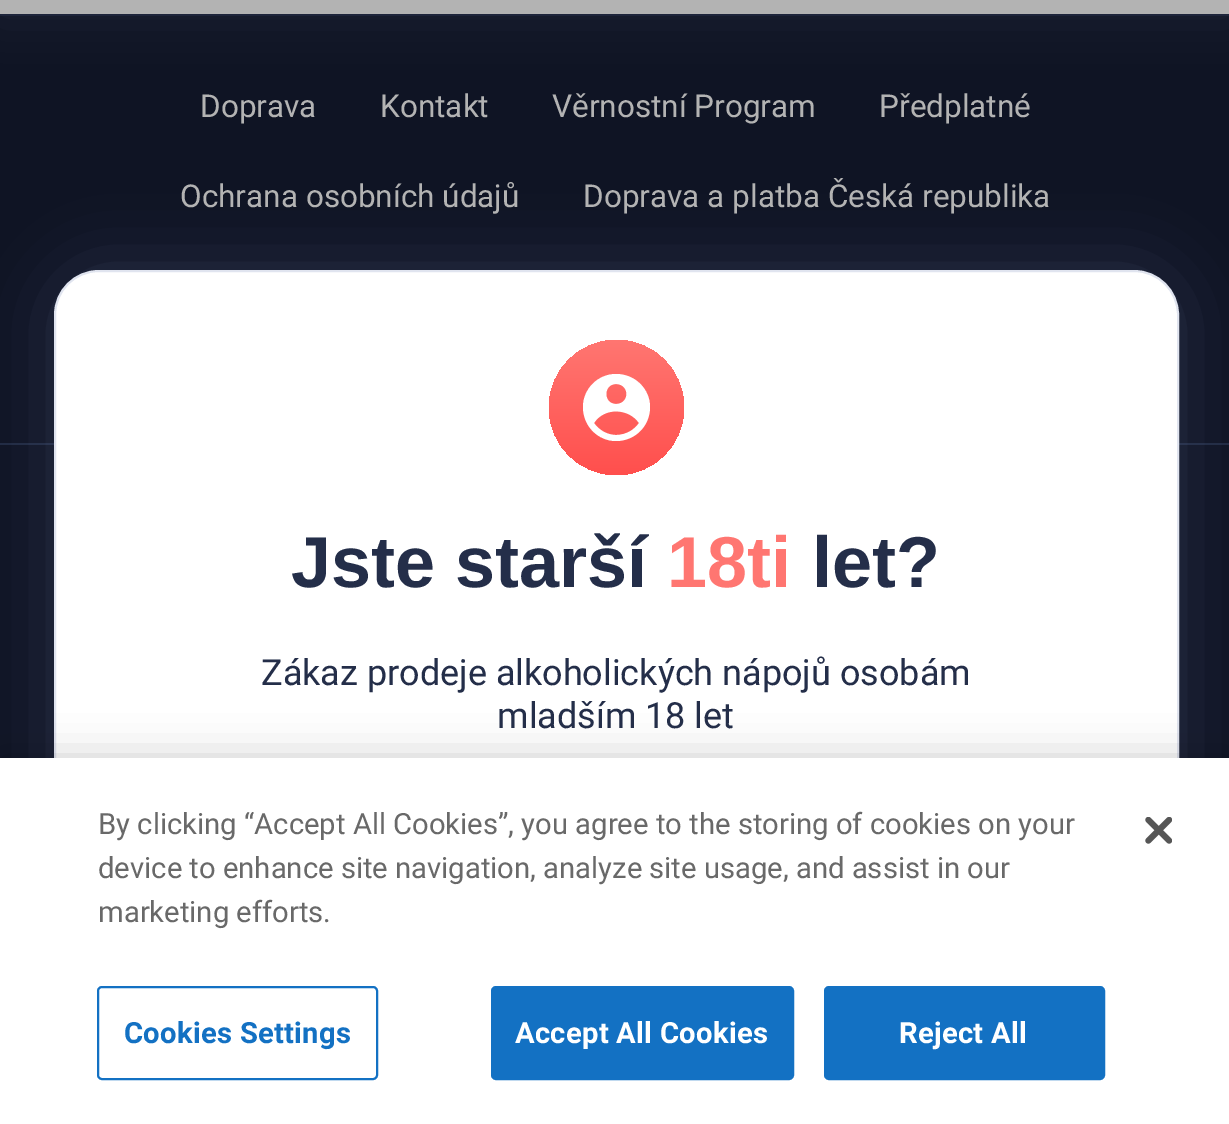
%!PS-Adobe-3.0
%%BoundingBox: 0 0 1229 1124
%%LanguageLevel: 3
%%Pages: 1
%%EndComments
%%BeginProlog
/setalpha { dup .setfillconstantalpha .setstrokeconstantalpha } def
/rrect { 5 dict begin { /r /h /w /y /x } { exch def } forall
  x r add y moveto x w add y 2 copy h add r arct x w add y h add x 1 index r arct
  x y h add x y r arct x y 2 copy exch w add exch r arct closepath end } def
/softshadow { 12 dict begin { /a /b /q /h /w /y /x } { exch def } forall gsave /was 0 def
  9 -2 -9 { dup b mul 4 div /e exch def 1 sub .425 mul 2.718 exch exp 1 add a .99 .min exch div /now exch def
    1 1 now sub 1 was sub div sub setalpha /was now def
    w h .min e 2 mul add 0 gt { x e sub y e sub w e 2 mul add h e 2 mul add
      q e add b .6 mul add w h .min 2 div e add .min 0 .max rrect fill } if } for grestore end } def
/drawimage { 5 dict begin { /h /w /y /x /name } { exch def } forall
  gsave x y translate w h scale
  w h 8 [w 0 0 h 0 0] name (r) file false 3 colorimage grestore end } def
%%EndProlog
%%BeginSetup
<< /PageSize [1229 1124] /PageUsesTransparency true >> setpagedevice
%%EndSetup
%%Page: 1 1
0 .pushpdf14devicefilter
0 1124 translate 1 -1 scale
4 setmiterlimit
0.059 0.078 0.141 setrgbcolor
0 0 1229 1124 rectfill
0.098 0.125 0.2 setrgbcolor
0 14 1229 2 rectfill
0.318 0.353 0.467 setrgbcolor
0 -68 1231 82 0 22.5 0.2 softshadow
0.702 setgray
0 0 1229 14 rectfill
0.125 0.165 0.263 setrgbcolor
0 443 1229 2 rectfill
0.455 0.506 0.667 setrgbcolor
54 270 1125 716 45 34 0.25 softshadow
1 setgray
55 271 1123 714 44 rrect gsave fill grestore
0.878 0.894 0.937 setrgbcolor
2 setlinewidth
stroke
gsave newpath 616.5 407.5 67.5 0 360 arc closepath clip newpath
<< /ShadingType 2 /ColorSpace /DeviceRGB /Coords [617 340 617 475] /Extend [true true] /Function << /FunctionType 2 /Domain [0 1] /C0 [1 0.463 0.443] /C1 [1 0.31 0.302] /N 1 >> >> shfill grestore
1 setgray
newpath 616 374 moveto 598 374 583 389 583 407 curveto 583 426 598 441 616 441 curveto 635 441 650 426 650 407 curveto 650 389 635 374 616 374 curveto closepath 616 384 moveto 630 384 630 404 616 404 curveto 603 404 603 384 616 384 curveto closepath 616 435 moveto 606 435 598 429 594 423 curveto 604 407 629 408 639 423 curveto 635 429 627 435 616 435 curveto closepath fill
0 setgray
0 758 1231 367 0 20 0.2 softshadow
1 setgray
0 758 1229 366 rectfill
0.075 0.443 0.765 setrgbcolor
98 987 279 92 4 rrect stroke
492 987 301 92 4 rrect gsave fill grestore
stroke
825 987 279 92 4 rrect gsave fill grestore
stroke
(images/1.raw) 1145 817 27 27 drawimage
/Roboto-Regular [31.5 0 0 -31.5 0 0] selectfont
0.702 setgray
200 117 moveto (Doprava) show
380 117 moveto (Kontakt) show
552 117 moveto (Věrnostní Program) show
879 117 moveto (Předplatné) show
180 207 moveto (Ochrana osobních údajů) show
583 207 moveto (Doprava a platba Česká republika) show
/LiberationSans-Bold [72 0 0 -72 0 0] selectfont
0.141 0.18 0.286 setrgbcolor
291 587 moveto (Jste starší) show
1 0.463 0.443 setrgbcolor
667 587 moveto (18ti) show
0.141 0.18 0.286 setrgbcolor
812 587 moveto (let?) show
/Roboto-Regular [36 0 0 -36 0 0] selectfont
261 685 moveto (Zákaz prodeje alkoholických nápojů osobám) show
497 728 moveto (mladším 18 let) show
/Roboto-Regular [29.25 0 0 -29.25 0 0] selectfont
0.412 setgray
98 834 moveto (By clicking “Accept All Cookies”, you agree to the storing of cookies on your) show
98 878 moveto (device to enhance site navigation, analyze site usage, and assist in our) show
98 922 moveto (marketing efforts.) show
/Roboto-Bold [29.25 0 0 -29.25 0 0] selectfont
0.075 0.443 0.765 setrgbcolor
124 1043 moveto 0.25 0 (Cookies Settings) ashow
1 setgray
515 1043 moveto 0.25 0 (Accept All Cookies) ashow
899 1043 moveto 0.25 0 (Reject All) ashow
.poppdf14devicefilter showpage
%%EOF
